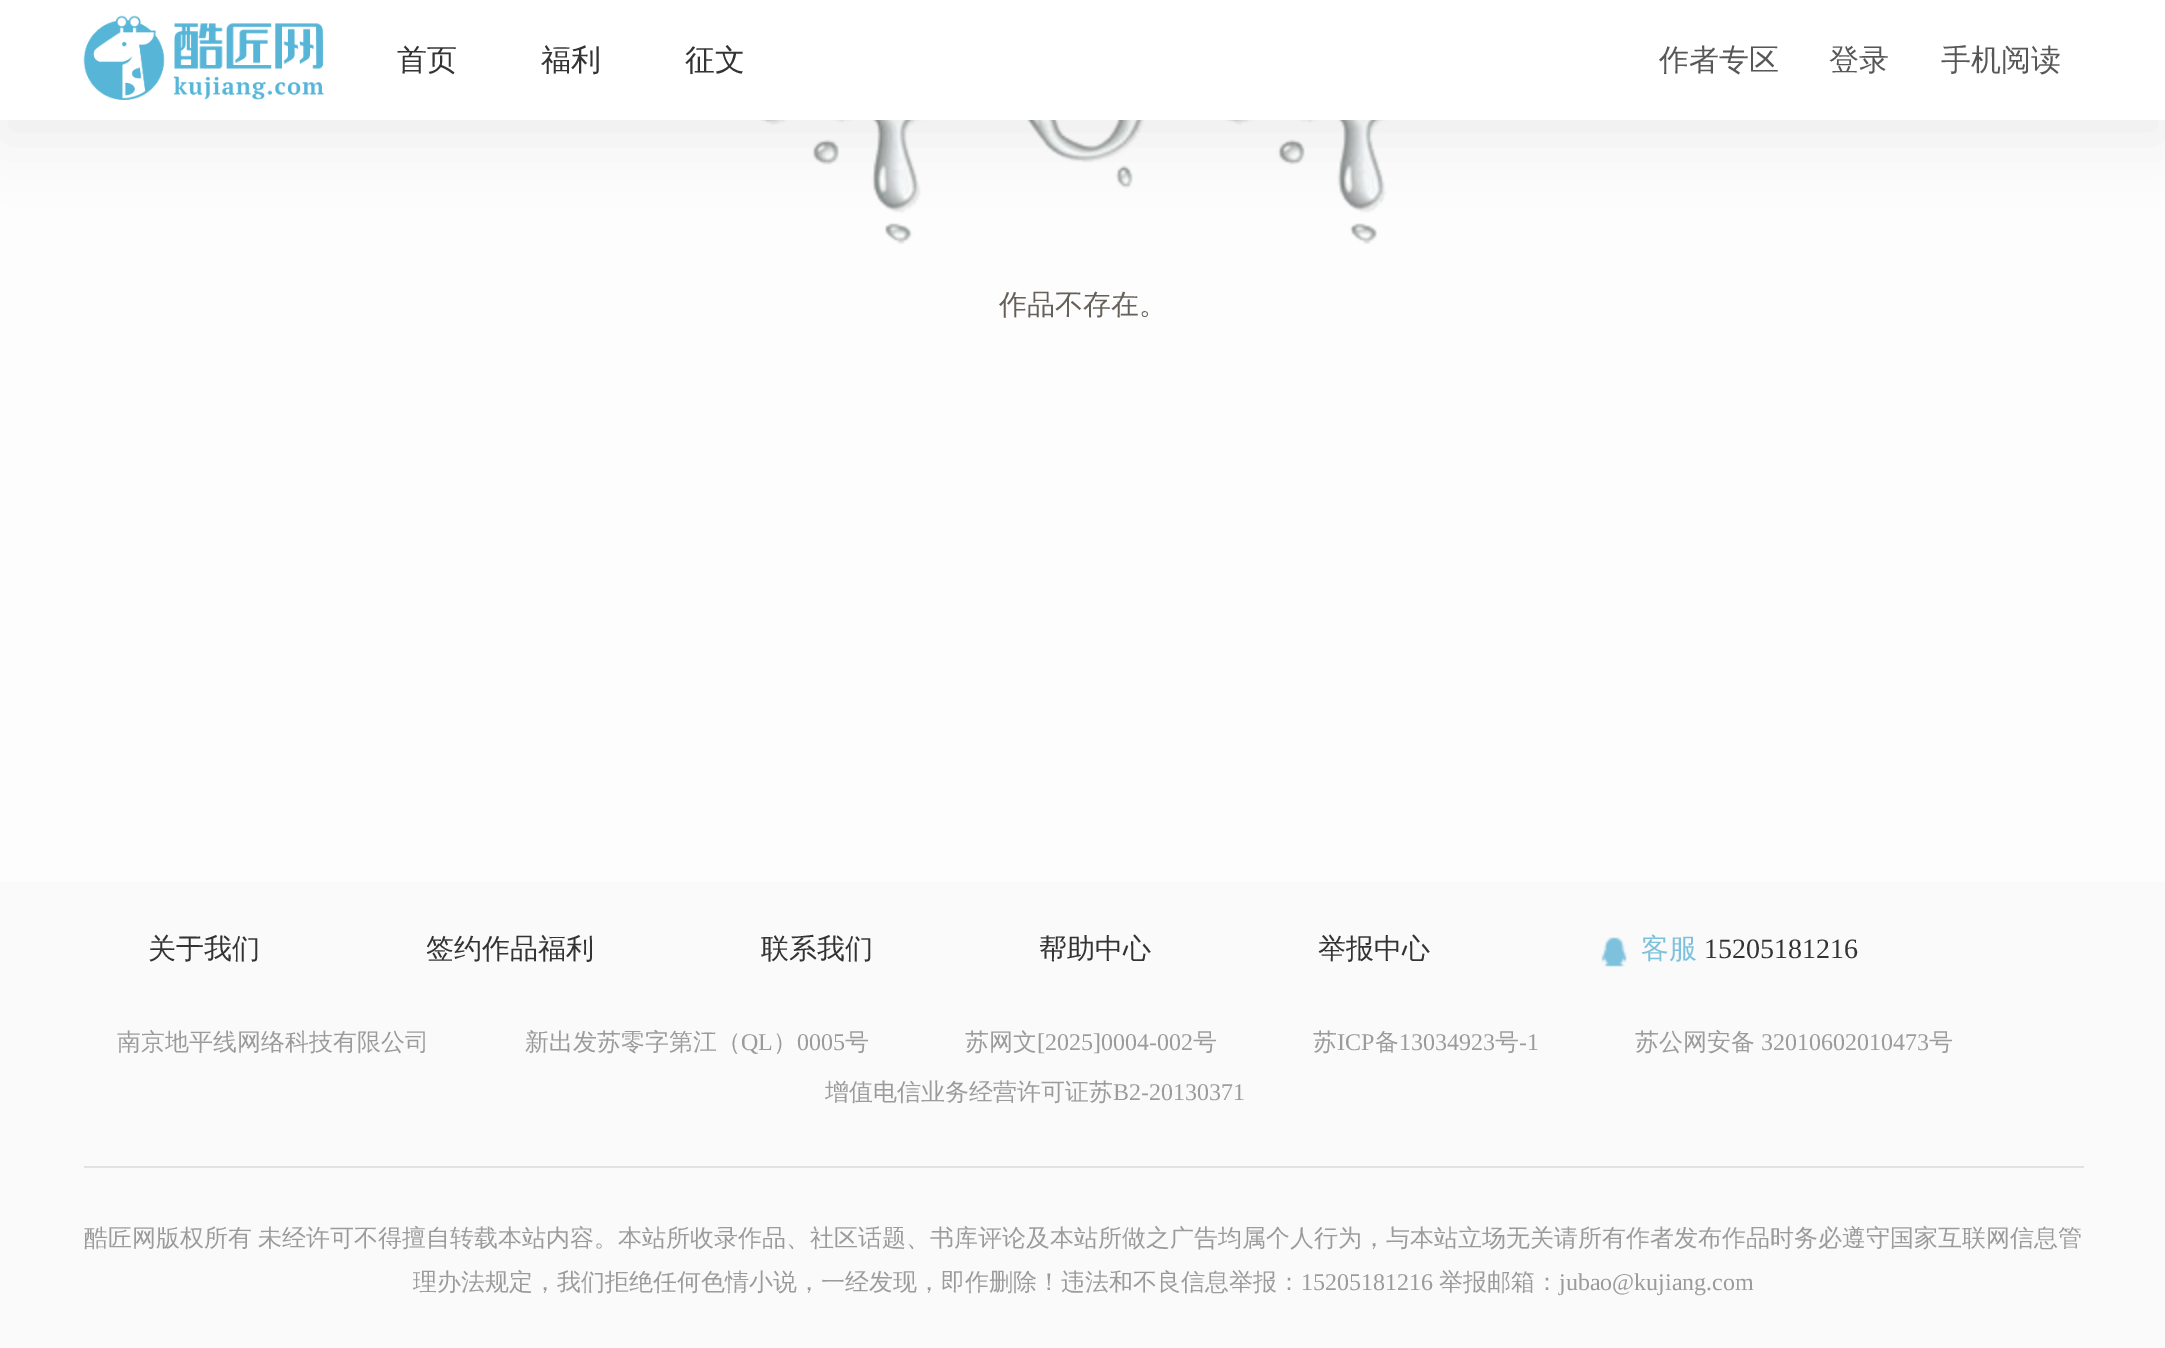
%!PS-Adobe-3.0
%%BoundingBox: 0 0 2165 1348
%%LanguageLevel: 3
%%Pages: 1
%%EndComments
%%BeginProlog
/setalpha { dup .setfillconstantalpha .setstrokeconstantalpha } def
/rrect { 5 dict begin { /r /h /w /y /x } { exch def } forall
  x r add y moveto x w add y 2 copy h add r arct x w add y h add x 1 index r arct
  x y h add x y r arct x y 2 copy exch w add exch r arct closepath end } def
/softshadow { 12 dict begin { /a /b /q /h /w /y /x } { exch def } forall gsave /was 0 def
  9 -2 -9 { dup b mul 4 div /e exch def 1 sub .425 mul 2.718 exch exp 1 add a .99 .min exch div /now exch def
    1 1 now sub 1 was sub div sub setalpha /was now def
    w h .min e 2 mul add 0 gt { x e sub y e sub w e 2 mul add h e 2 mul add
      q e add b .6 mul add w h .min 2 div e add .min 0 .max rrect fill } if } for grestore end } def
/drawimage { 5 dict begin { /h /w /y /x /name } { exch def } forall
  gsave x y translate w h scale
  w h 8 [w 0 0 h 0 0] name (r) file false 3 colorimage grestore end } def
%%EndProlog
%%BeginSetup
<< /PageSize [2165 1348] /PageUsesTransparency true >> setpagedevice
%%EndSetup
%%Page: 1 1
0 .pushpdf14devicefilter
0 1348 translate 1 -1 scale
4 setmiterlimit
0.992 setgray
0 0 2165 1348 rectfill
(images/2.raw) 758 120 655 124 drawimage
0.4 setgray
0 20 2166 120 0 30 0.1 softshadow
1 setgray
0 0 2165 120 rectfill
(images/1.raw) 83 15 241 85 drawimage
0.98 setgray
0 882 2165 466 rectfill
(images/3.raw) 1601 937 26 30 drawimage
0.886 setgray
84 1166 2000 2 rectfill
/WenQuanYiZenHei-Medium [30 0 0 -30 0 0] selectfont
0.2 setgray
397 70 moveto (首页) show
541 70 moveto (福利) show
685 70 moveto (征文) show
0.341 setgray
1659 70 moveto (作者专区) show
1829 70 moveto (登录) show
1941 70 moveto (手机阅读) show
/WenQuanYiZenHei-Medium [28 0 0 -28 0 0] selectfont
0.4 0.376 0.357 setrgbcolor
999 314 moveto (作品不存在。) show
0.2 setgray
148 958 moveto (关于我们) show
426 958 moveto (签约作品福利) show
761 958 moveto (联系我们) show
1039 958 moveto (帮助中心) show
1318 958 moveto (举报中心) show
0.49 0.757 0.863 setrgbcolor
1641 958 moveto (客服) show
/LiberationSerif-Regular [28 0 0 -28 0 0] selectfont
0.2 setgray
1704 958 moveto (15205181216) show
/WenQuanYiZenHei-Medium [24 0 0 -24 0 0] selectfont
0.608 setgray
117 1050 moveto (南京地平线网络科技有限公司) show
525 1050 moveto (新出发苏零字第江（) show
/LiberationSerif-Regular [24 0 0 -24 0 0] selectfont
741 1050 moveto (QL) show
/WenQuanYiZenHei-Medium [24 0 0 -24 0 0] selectfont
773 1050 moveto (）) show
/LiberationSerif-Regular [24 0 0 -24 0 0] selectfont
797 1050 moveto (0005) show
/WenQuanYiZenHei-Medium [24 0 0 -24 0 0] selectfont
845 1050 moveto (号) show
965 1050 moveto (苏网文) show
/LiberationSerif-Regular [24 0 0 -24 0 0] selectfont
1037 1050 moveto ([2025]0004-002) show
/WenQuanYiZenHei-Medium [24 0 0 -24 0 0] selectfont
1193 1050 moveto (号) show
1313 1050 moveto (苏) show
/LiberationSerif-Regular [24 0 0 -24 0 0] selectfont
1337 1050 moveto (ICP) show
/WenQuanYiZenHei-Medium [24 0 0 -24 0 0] selectfont
1375 1050 moveto (备) show
/LiberationSerif-Regular [24 0 0 -24 0 0] selectfont
1399 1050 moveto (13034923) show
/WenQuanYiZenHei-Medium [24 0 0 -24 0 0] selectfont
1495 1050 moveto (号) show
/LiberationSerif-Regular [24 0 0 -24 0 0] selectfont
1519 1050 moveto (-1) show
/WenQuanYiZenHei-Medium [24 0 0 -24 0 0] selectfont
1635 1050 moveto (苏公网安备) show
/LiberationSerif-Regular [24 0 0 -24 0 0] selectfont
1761 1050 moveto (32010602010473) show
/WenQuanYiZenHei-Medium [24 0 0 -24 0 0] selectfont
1929 1050 moveto (号) show
825 1100 moveto (增值电信业务经营许可证苏) show
/LiberationSerif-Regular [24 0 0 -24 0 0] selectfont
1113 1100 moveto (B2-20130371) show
/WenQuanYiZenHei-Medium [24 0 0 -24 0 0] selectfont
84 1246 moveto -1 0 32 (酷匠网版权所有 未经许可不得擅自转载本站内容。本站所收录作品、社区话题、书库评论及本站所做之广告均属个人行为，与本站立场无关请所有作者发布作品时务必遵守国家互联网信息管) widthshow
413 1290 moveto (理办法规定，我们拒绝任何色情小说，一经发现，即作删除！违法和不良信息举报：) show
/LiberationSerif-Regular [24 0 0 -24 0 0] selectfont
1301 1290 moveto (15205181216) show
/WenQuanYiZenHei-Medium [24 0 0 -24 0 0] selectfont
1439 1290 moveto (举报邮箱：) show
/LiberationSerif-Regular [24 0 0 -24 0 0] selectfont
1559 1290 moveto (jubao@kujiang.com) show
.poppdf14devicefilter showpage
%%EOF
